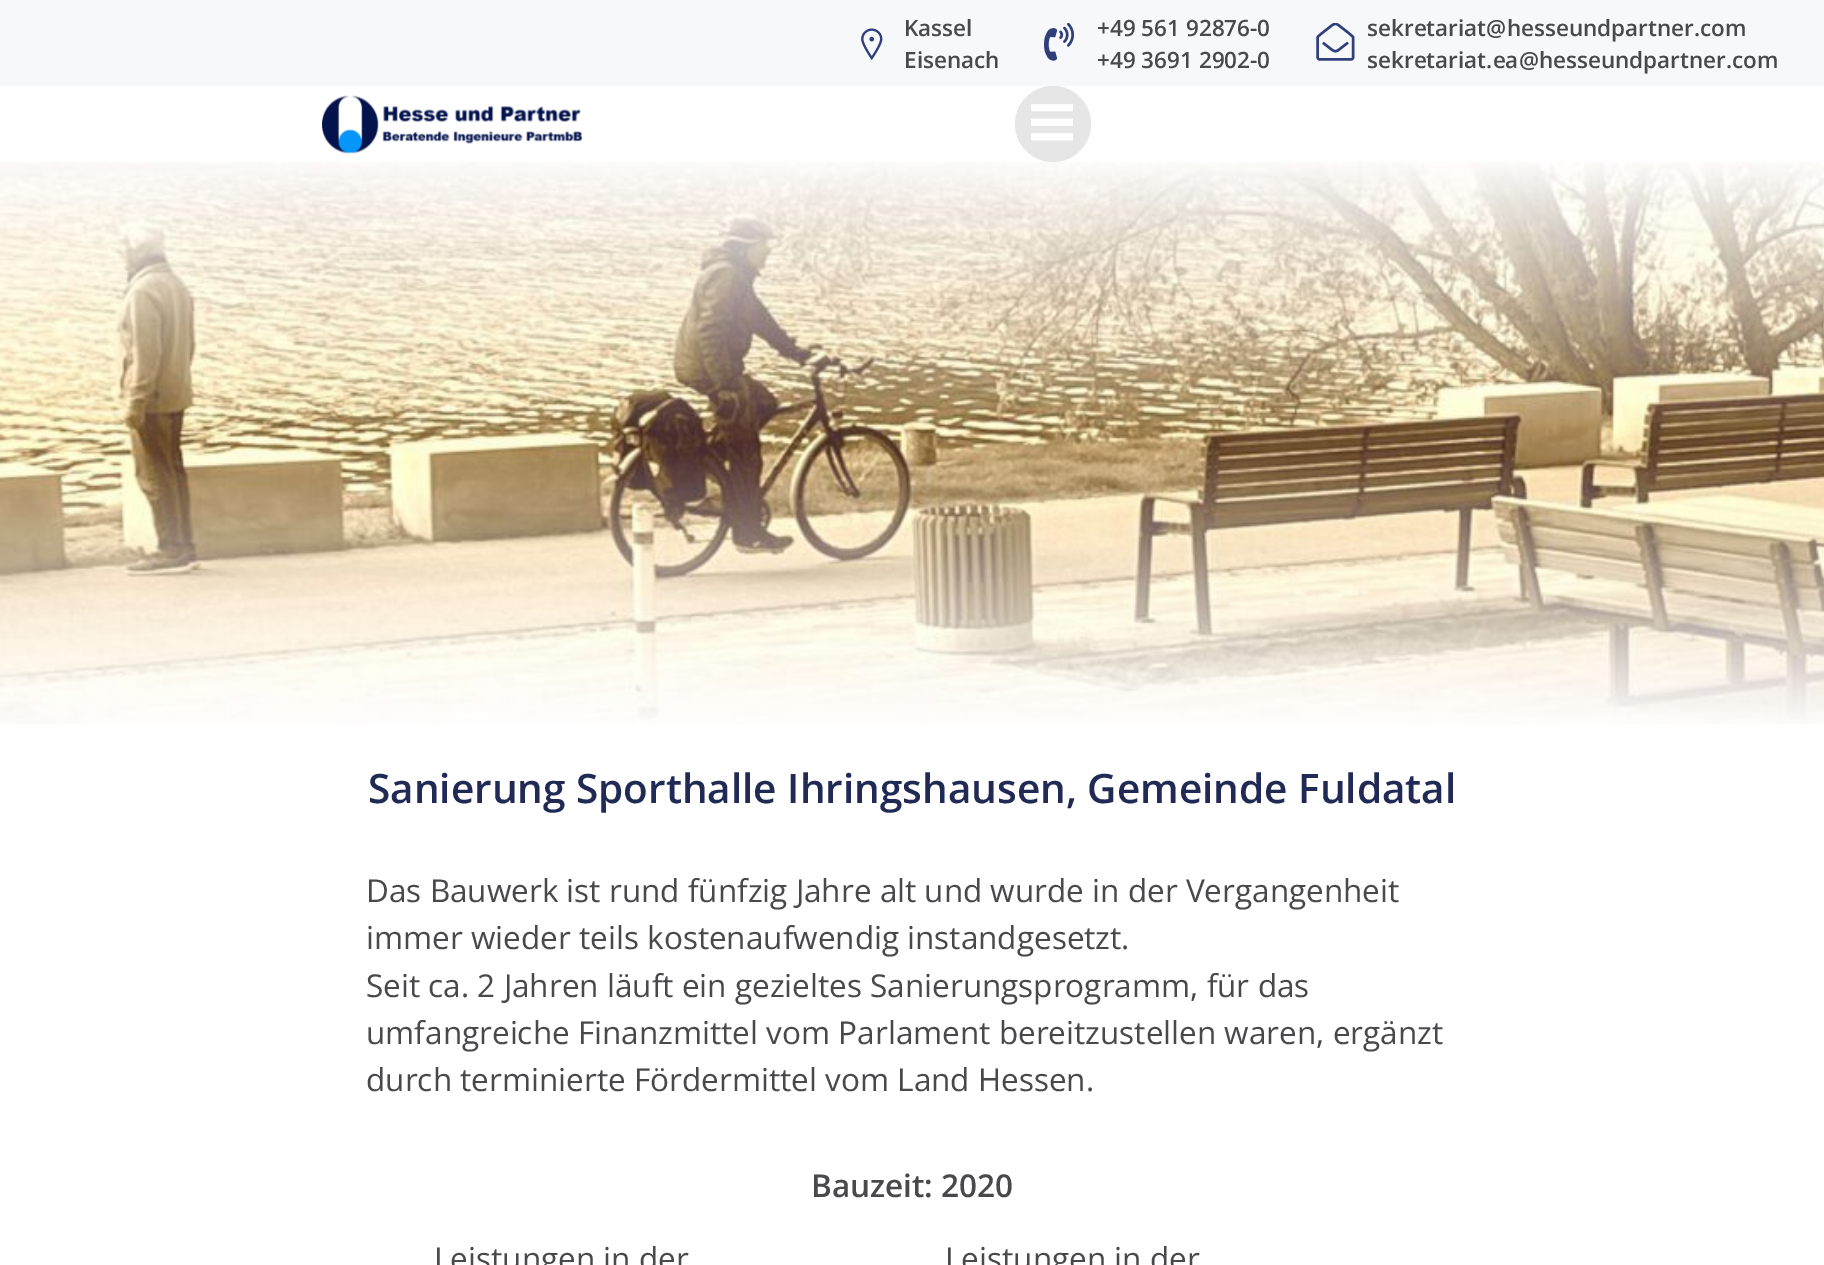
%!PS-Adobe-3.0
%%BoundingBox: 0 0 1824 1265
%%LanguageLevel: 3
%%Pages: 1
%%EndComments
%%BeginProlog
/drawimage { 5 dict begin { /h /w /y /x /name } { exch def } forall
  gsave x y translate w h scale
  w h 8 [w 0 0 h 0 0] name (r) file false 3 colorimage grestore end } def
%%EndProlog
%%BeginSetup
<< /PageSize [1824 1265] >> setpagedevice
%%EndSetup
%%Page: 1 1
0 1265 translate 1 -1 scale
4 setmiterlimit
1 setgray
0 0 1824 1265 rectfill
0.965 0.973 0.98 setrgbcolor
0 0 1824 86 rectfill
(images/1.raw) 861 28 22 33 drawimage
(images/2.raw) 1044 23 31 38 drawimage
(images/3.raw) 1316 23 39 38 drawimage
(images/4.raw) 322 95 261 59 drawimage
0.902 setgray
newpath 1053 124 38 0 360 arc closepath fill
(images/5.raw) 1031 104 42 37 drawimage
(images/6.raw) 0 162 1824 563 drawimage
/OpenSans-SemiBold [22.5 0 0 -22.5 0 0] selectfont
0.286 0.286 0.298 setrgbcolor
904 36 moveto (Kassel) show
904 68 moveto (Eisenach) show
1097 36 moveto (+49 561 92876-0) show
1097 68 moveto (+49 3691 2902-0) show
1367 36 moveto (sekretariat@hesseundpartner.com) show
1367 68 moveto (sekretariat.ea@hesseundpartner.com) show
/OpenSans-SemiBold [40.5 0 0 -40.5 0 0] selectfont
0.125 0.165 0.329 setrgbcolor
368 803 moveto (Sanierung Sporthalle Ihringshausen, Gemeinde Fuldatal) show
/OpenSans-Regular [31.5 0 0 -31.5 0 0] selectfont
0.286 0.286 0.298 setrgbcolor
366 902 moveto (Das Bauwerk ist rund fünfzig Jahre alt und wurde in der Vergangenheit) show
366 949 moveto (immer wieder teils kostenaufwendig instandgesetzt.) show
366 997 moveto (Seit ca. 2 Jahren läuft ein gezieltes Sanierungsprogramm, für das) show
366 1044 moveto (umfangreiche Finanzmittel vom Parlament bereitzustellen waren, ergänzt) show
366 1091 moveto (durch terminierte Fördermittel vom Land Hessen.) show
/OpenSans-SemiBold [31.5 0 0 -31.5 0 0] selectfont
811 1197 moveto (Bauzeit: 2020) show
/OpenSans-Regular [31.5 0 0 -31.5 0 0] selectfont
434 1270 moveto (Leistungen in der) show
945 1270 moveto (Leistungen in der) show
showpage
%%EOF
